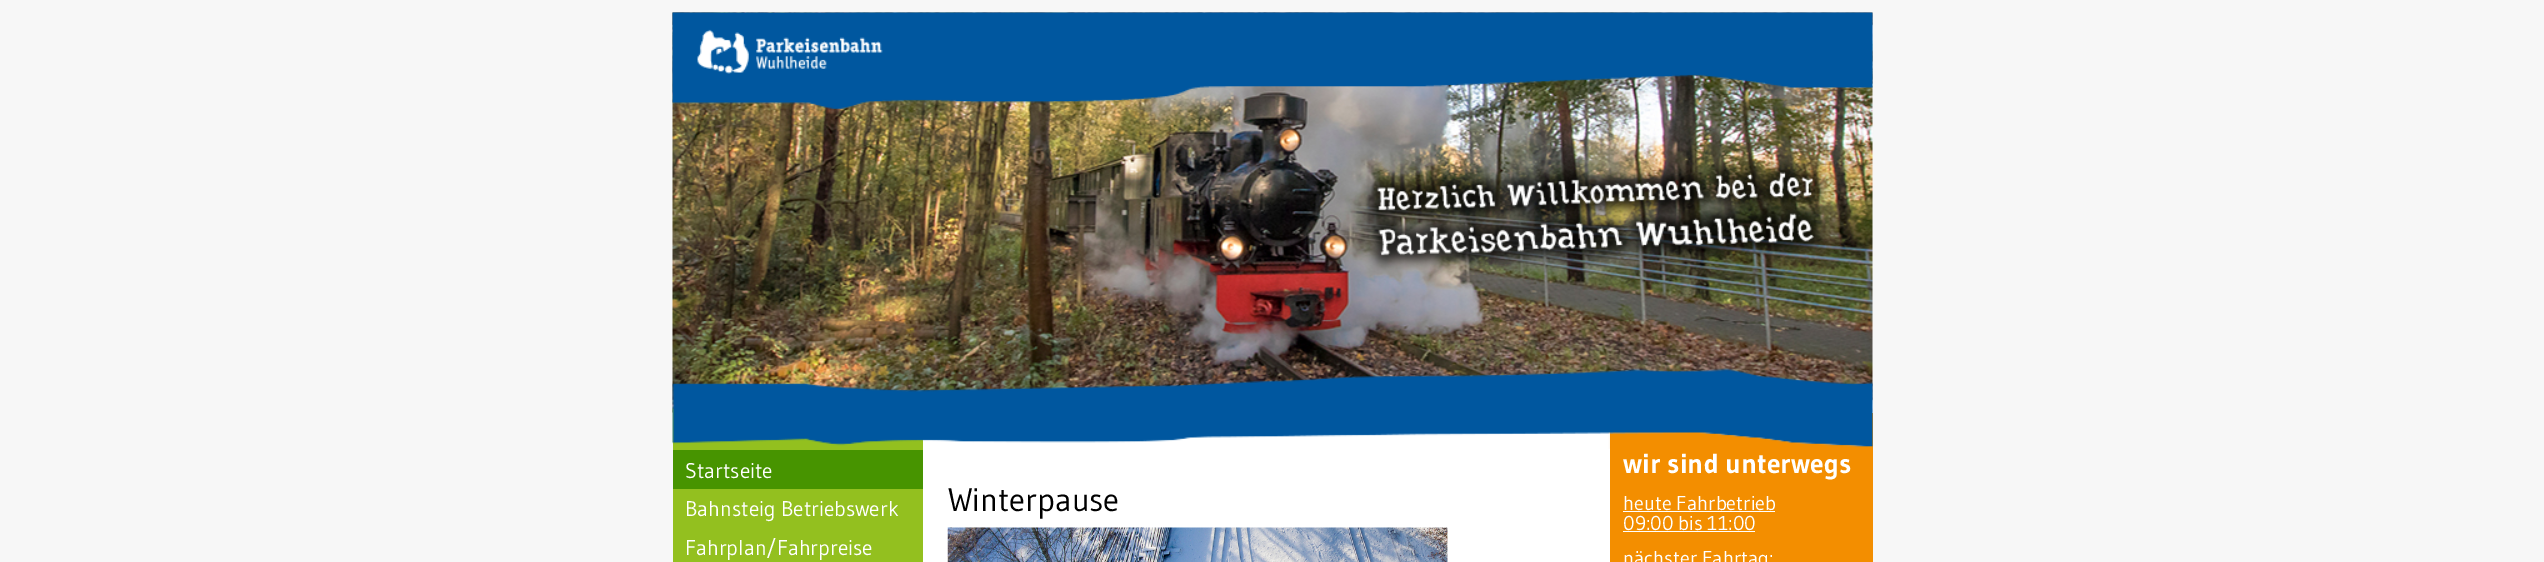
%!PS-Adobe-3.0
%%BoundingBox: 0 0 2544 562
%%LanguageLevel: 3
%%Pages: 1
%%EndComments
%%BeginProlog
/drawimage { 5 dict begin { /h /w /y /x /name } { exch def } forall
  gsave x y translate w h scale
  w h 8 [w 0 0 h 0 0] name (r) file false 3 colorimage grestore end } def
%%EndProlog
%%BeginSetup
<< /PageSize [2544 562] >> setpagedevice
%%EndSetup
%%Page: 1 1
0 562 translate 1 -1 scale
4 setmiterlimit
0.969 setgray
0 0 2544 562 rectfill
(images/1.raw) 672 12 1201 401 drawimage
(images/2.raw) 672 12 1201 97 drawimage
(images/3.raw) 697 29 186 45 drawimage
0.576 0.753 0.122 setrgbcolor
673 438 250 124 rectfill
1 setgray
923 432 687 130 rectfill
0.953 0.557 0 setrgbcolor
1610 413 263 149 rectfill
(images/4.raw) 672 368 1201 81 drawimage
0.278 0.58 0 setrgbcolor
673 450 250 39 rectfill
(images/5.raw) 947 527 501 35 drawimage
1 setgray
1623 511 152 1 rectfill
1623 531 132 1 rectfill
/Gudea-Regular [21.25 0 0 -21.25 0 0] selectfont
685 478 moveto (Startseite) show
685 516 moveto (Bahnsteig Betriebswerk) show
685 555 moveto (Fahrplan/Fahrpreise) show
/Gudea-Regular [32.5 0 0 -32.5 0 0] selectfont
0 setgray
948 511 moveto (Winterpause) show
/Gudea-Bold [27.5 0 0 -27.5 0 0] selectfont
1 setgray
1623 473 moveto (wir sind unterwegs) show
/Gudea-Regular [20 0 0 -20 0 0] selectfont
1623 510 moveto (heute Fahrbetrieb) show
1623 530 moveto (09:00 bis 11:00) show
1623 565 moveto (nächster Fahrtag:) show
showpage
%%EOF
